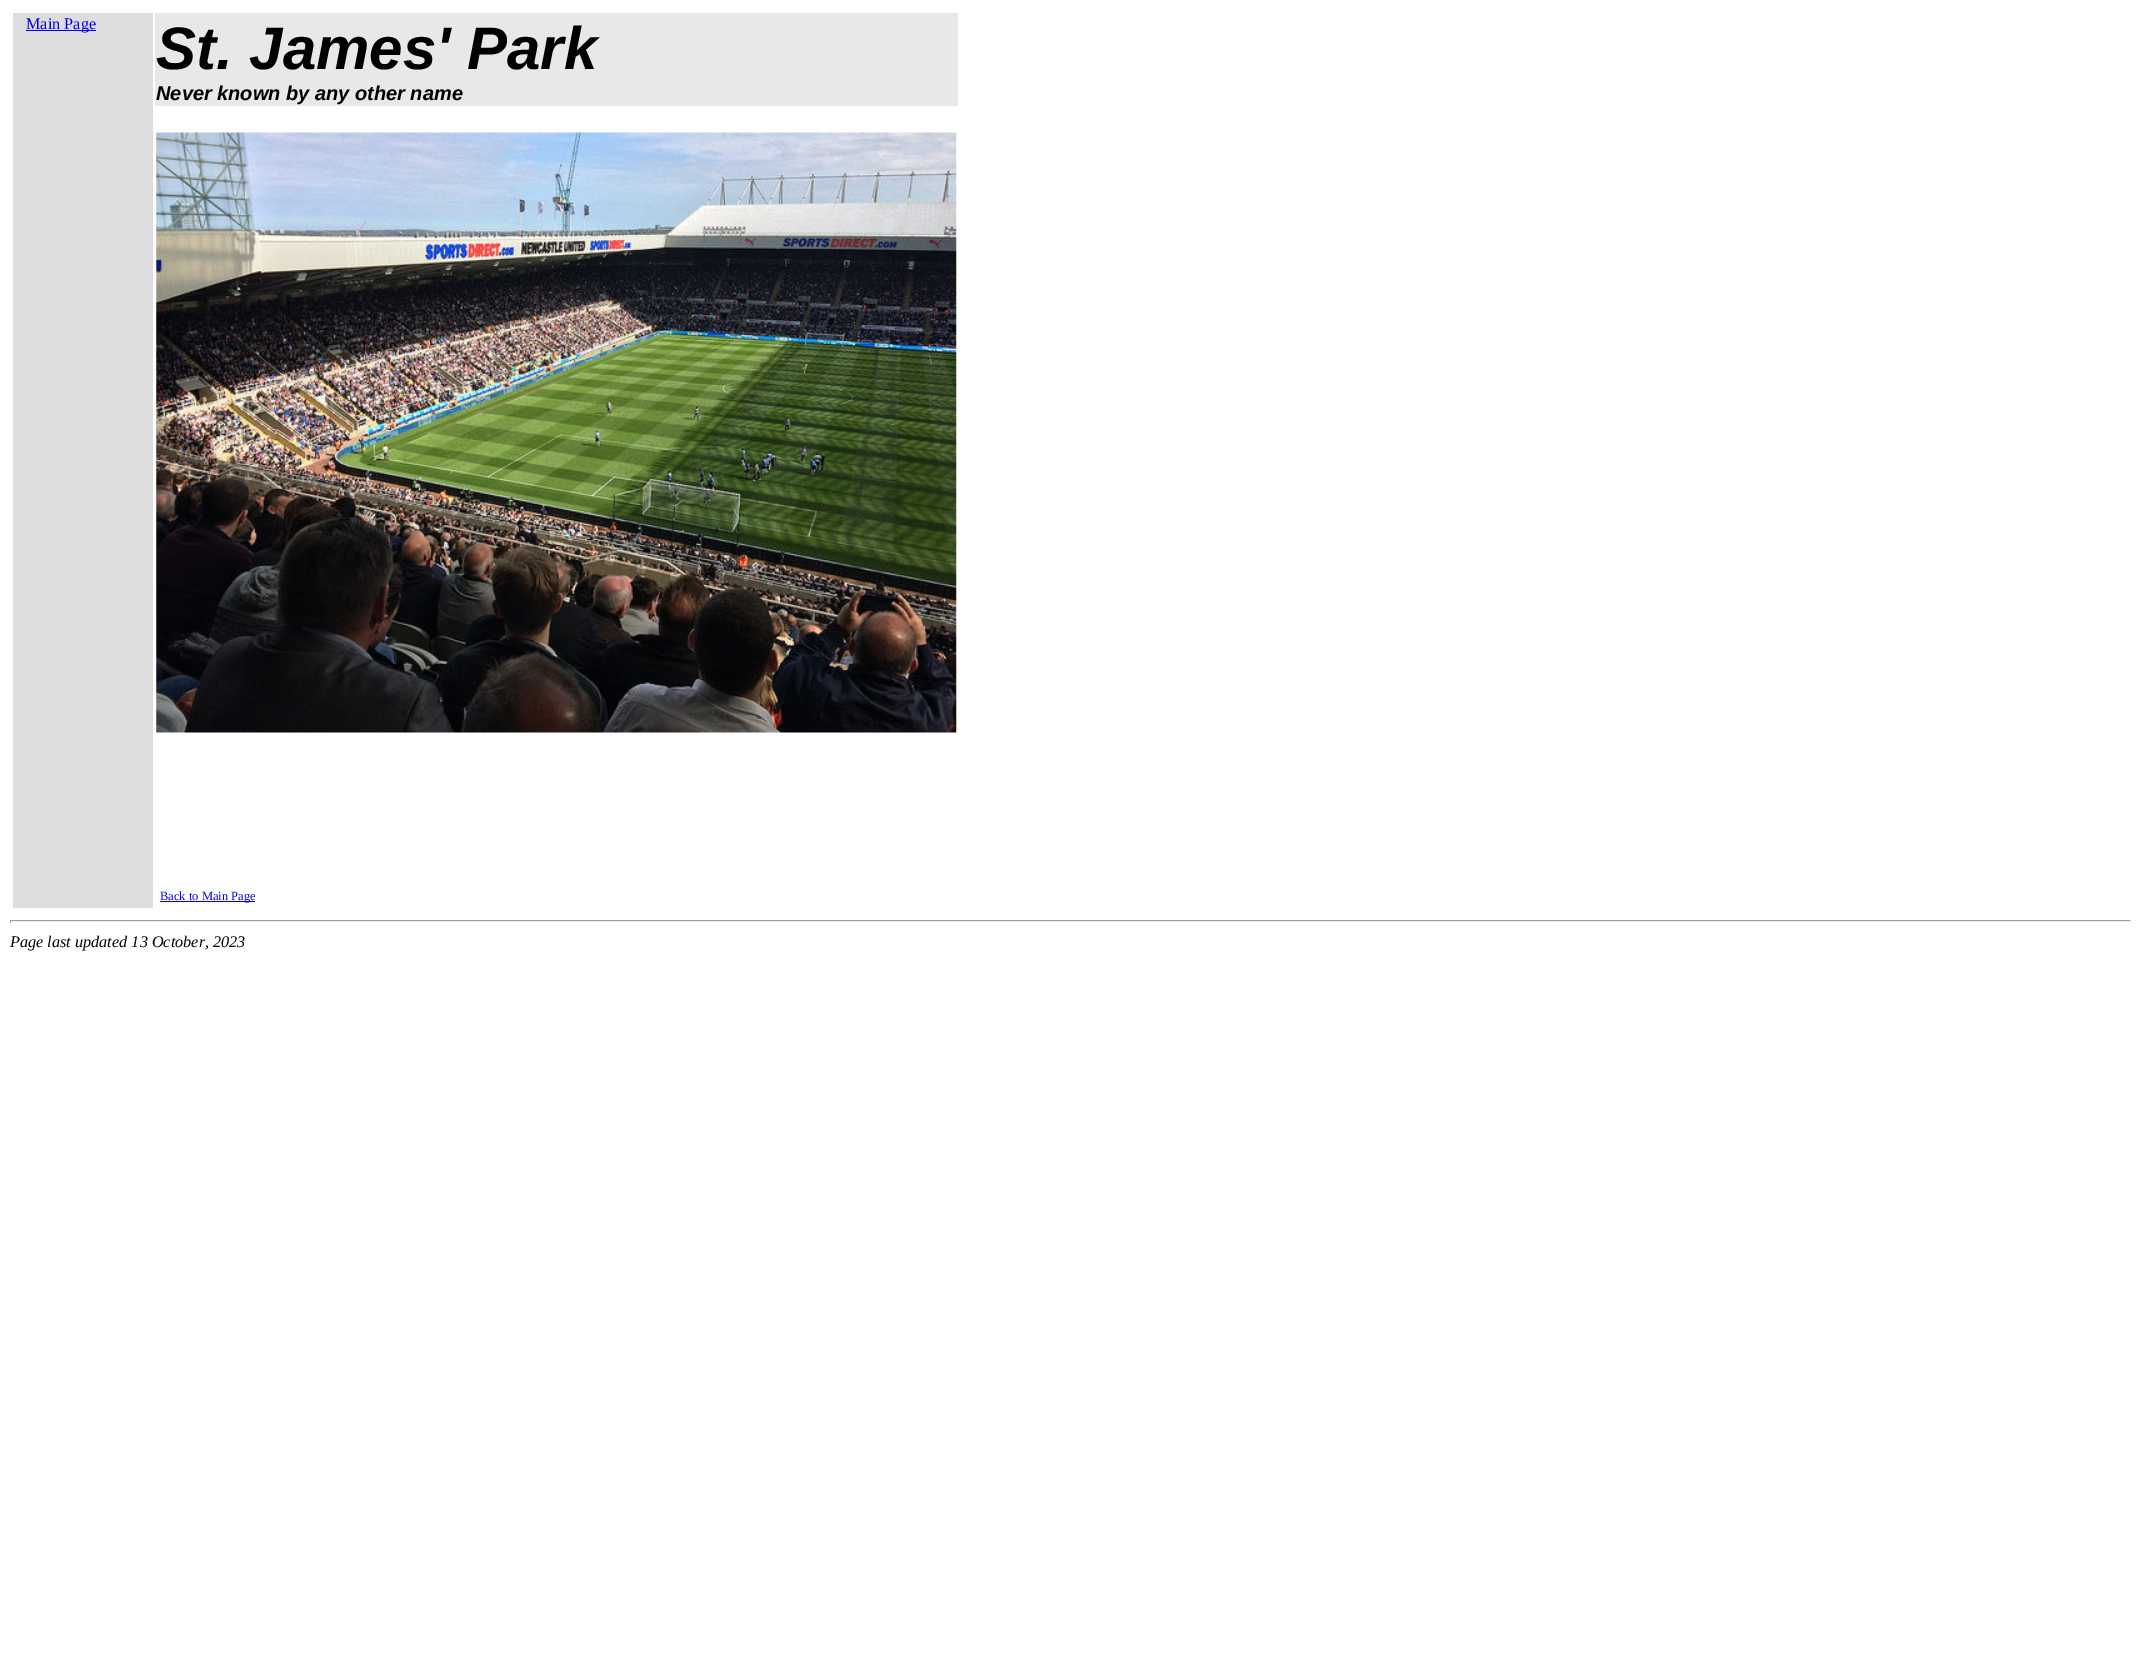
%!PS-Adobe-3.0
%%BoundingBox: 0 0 2141 1678
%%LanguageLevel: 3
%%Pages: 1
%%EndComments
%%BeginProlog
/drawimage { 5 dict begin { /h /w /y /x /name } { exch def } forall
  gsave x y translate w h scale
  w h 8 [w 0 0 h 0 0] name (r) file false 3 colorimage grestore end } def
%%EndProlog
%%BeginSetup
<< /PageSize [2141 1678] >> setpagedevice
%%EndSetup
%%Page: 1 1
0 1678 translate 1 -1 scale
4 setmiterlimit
1 setgray
0 0 2141 1678 rectfill
0.867 setgray
13 13 140 895 rectfill
0 0 0.933 setrgbcolor
26 30 70 1 rectfill
0.91 setgray
155 13 803 93 rectfill
(images/1.raw) 156 132 801 601 drawimage
0 0 0.933 setrgbcolor
160 901 95 1 rectfill
0.624 setgray
10 920 2121 1 rectfill
0.933 setgray
2130 920 1 3 rectfill
10 921 2121 1 rectfill
0.624 setgray
10 920 1 3 rectfill
/LiberationSerif-Regular [16.25 0 0 -16.25 0 0] selectfont
0 0 0.933 setrgbcolor
26 29 moveto (Main Page) show
/LiberationSans-BoldItalic [60 0 0 -60 0 0] selectfont
0 setgray
156 69 moveto (St. James' Park) show
/LiberationSans-BoldItalic [20 0 0 -20 0 0] selectfont
156 100 moveto (Never known by any other name) show
/LiberationSerif-Regular [12.5 0 0 -12.5 0 0] selectfont
0 0 0.933 setrgbcolor
160 900 moveto (Back to Main Page) show
/LiberationSerif-Italic [16.25 0 0 -16.25 0 0] selectfont
0 setgray
10 947 moveto (Page last updated 13 October, 2023) show
showpage
%%EOF
